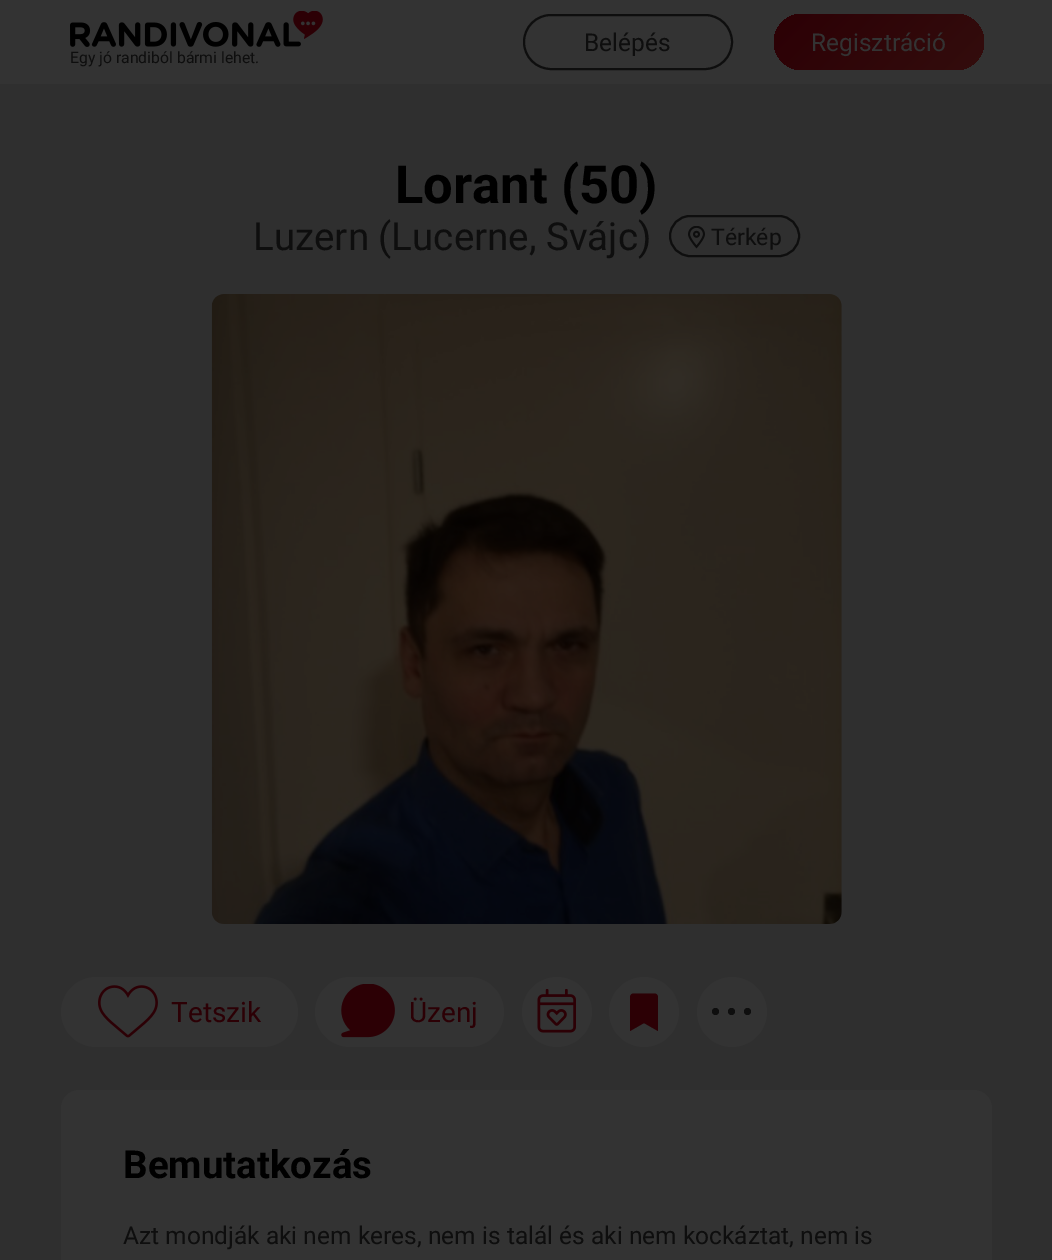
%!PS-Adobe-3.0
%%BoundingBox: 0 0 1052 1260
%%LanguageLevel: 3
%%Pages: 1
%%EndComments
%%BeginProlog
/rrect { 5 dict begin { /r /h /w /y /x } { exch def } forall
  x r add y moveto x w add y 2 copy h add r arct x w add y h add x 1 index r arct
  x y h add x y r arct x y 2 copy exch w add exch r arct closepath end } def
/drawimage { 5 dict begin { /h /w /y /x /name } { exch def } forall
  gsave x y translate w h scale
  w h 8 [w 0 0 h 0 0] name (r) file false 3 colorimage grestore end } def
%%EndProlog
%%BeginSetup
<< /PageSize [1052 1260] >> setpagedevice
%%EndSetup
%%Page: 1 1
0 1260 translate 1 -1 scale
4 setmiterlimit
0.184 setgray
0 0 1052 1260 rectfill
0.2 setgray
0 0 1052 84 rectfill
0.055 setgray
2 setlinewidth
524 15 208 54 27 rrect stroke
gsave 774 14 210 56 28 rrect clip newpath
<< /ShadingType 2 /ColorSpace /DeviceRGB /Coords [812 -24 945 109] /Extend [true true] /Function << /FunctionType 2 /Domain [0 1] /C0 [0.173 0 0.02] /C1 [0.2 0.051 0.051] /N 1 >> >> shfill grestore
(images/1.raw) 70 11 253 36 drawimage
670 216 129 40 20 rrect stroke
(images/2.raw) 688 226 17 23 drawimage
(images/3.raw) 211 294 631 630 drawimage
0.2 setgray
61 977 237 70 35 rrect fill
(images/4.raw) 98 985 60 53 drawimage
315 977 189 70 35 rrect fill
(images/5.raw) 341 984 54 54 drawimage
newpath 557 1012 35 0 360 arc closepath fill
(images/6.raw) 537 989 39 44 drawimage
newpath 644 1012 35 0 360 arc closepath fill
0.173 0 0.02 setrgbcolor
newpath 630 1031 moveto 644 1023 lineto 658 1031 lineto 658 997 lineto 658 995.5 656.5 993.5 654.5 993.5 curveto 633.5 993.5 lineto 631.5 993.5 630 995.5 630 997 curveto closepath fill
0.2 setgray
newpath 732 1012 35 0 360 arc closepath fill
0.055 setgray
newpath 715.5 1011.5 3.5 0 360 arc closepath fill
newpath 731.5 1011.5 3.5 0 360 arc closepath fill
newpath 747.5 1011.5 3.5 0 360 arc closepath fill
0.2 setgray
61 1090 931 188 18 rrect fill
/Roboto-Regular [24.5 0 0 -24.5 0 0] selectfont
0.055 setgray
584 51 moveto (Belépés) show
0.2 setgray
811 51 moveto (Regisztráció) show
/Roboto-Regular [15.75 0 0 -15.75 0 0] selectfont
0.055 setgray
70 63 moveto (Egy jó randiból bármi lehet.) show
/Roboto-Bold [52.5 0 0 -52.5 0 0] selectfont
0 setgray
395 203 moveto (Lorant \(50\)) show
/Roboto-Regular [38.5 0 0 -38.5 0 0] selectfont
0.055 setgray
253 250 moveto (Luzern \(Lucerne, Svájc\)) show
/Roboto-Regular [23 0 0 -23 0 0] selectfont
711 245 moveto (Térkép) show
/Roboto-Regular [28 0 0 -28 0 0] selectfont
0.173 0 0.02 setrgbcolor
171 1022 moveto (Tetszik) show
409 1022 moveto (Üzenj) show
/Roboto-Bold [38.5 0 0 -38.5 0 0] selectfont
0 setgray
123 1178 moveto (Bemutatkozás) show
/Roboto-Regular [24.5 0 0 -24.5 0 0] selectfont
0.055 setgray
123 1244 moveto (Azt mondják aki nem keres, nem is talál és aki nem kockáztat, nem is) show
showpage
%%EOF
